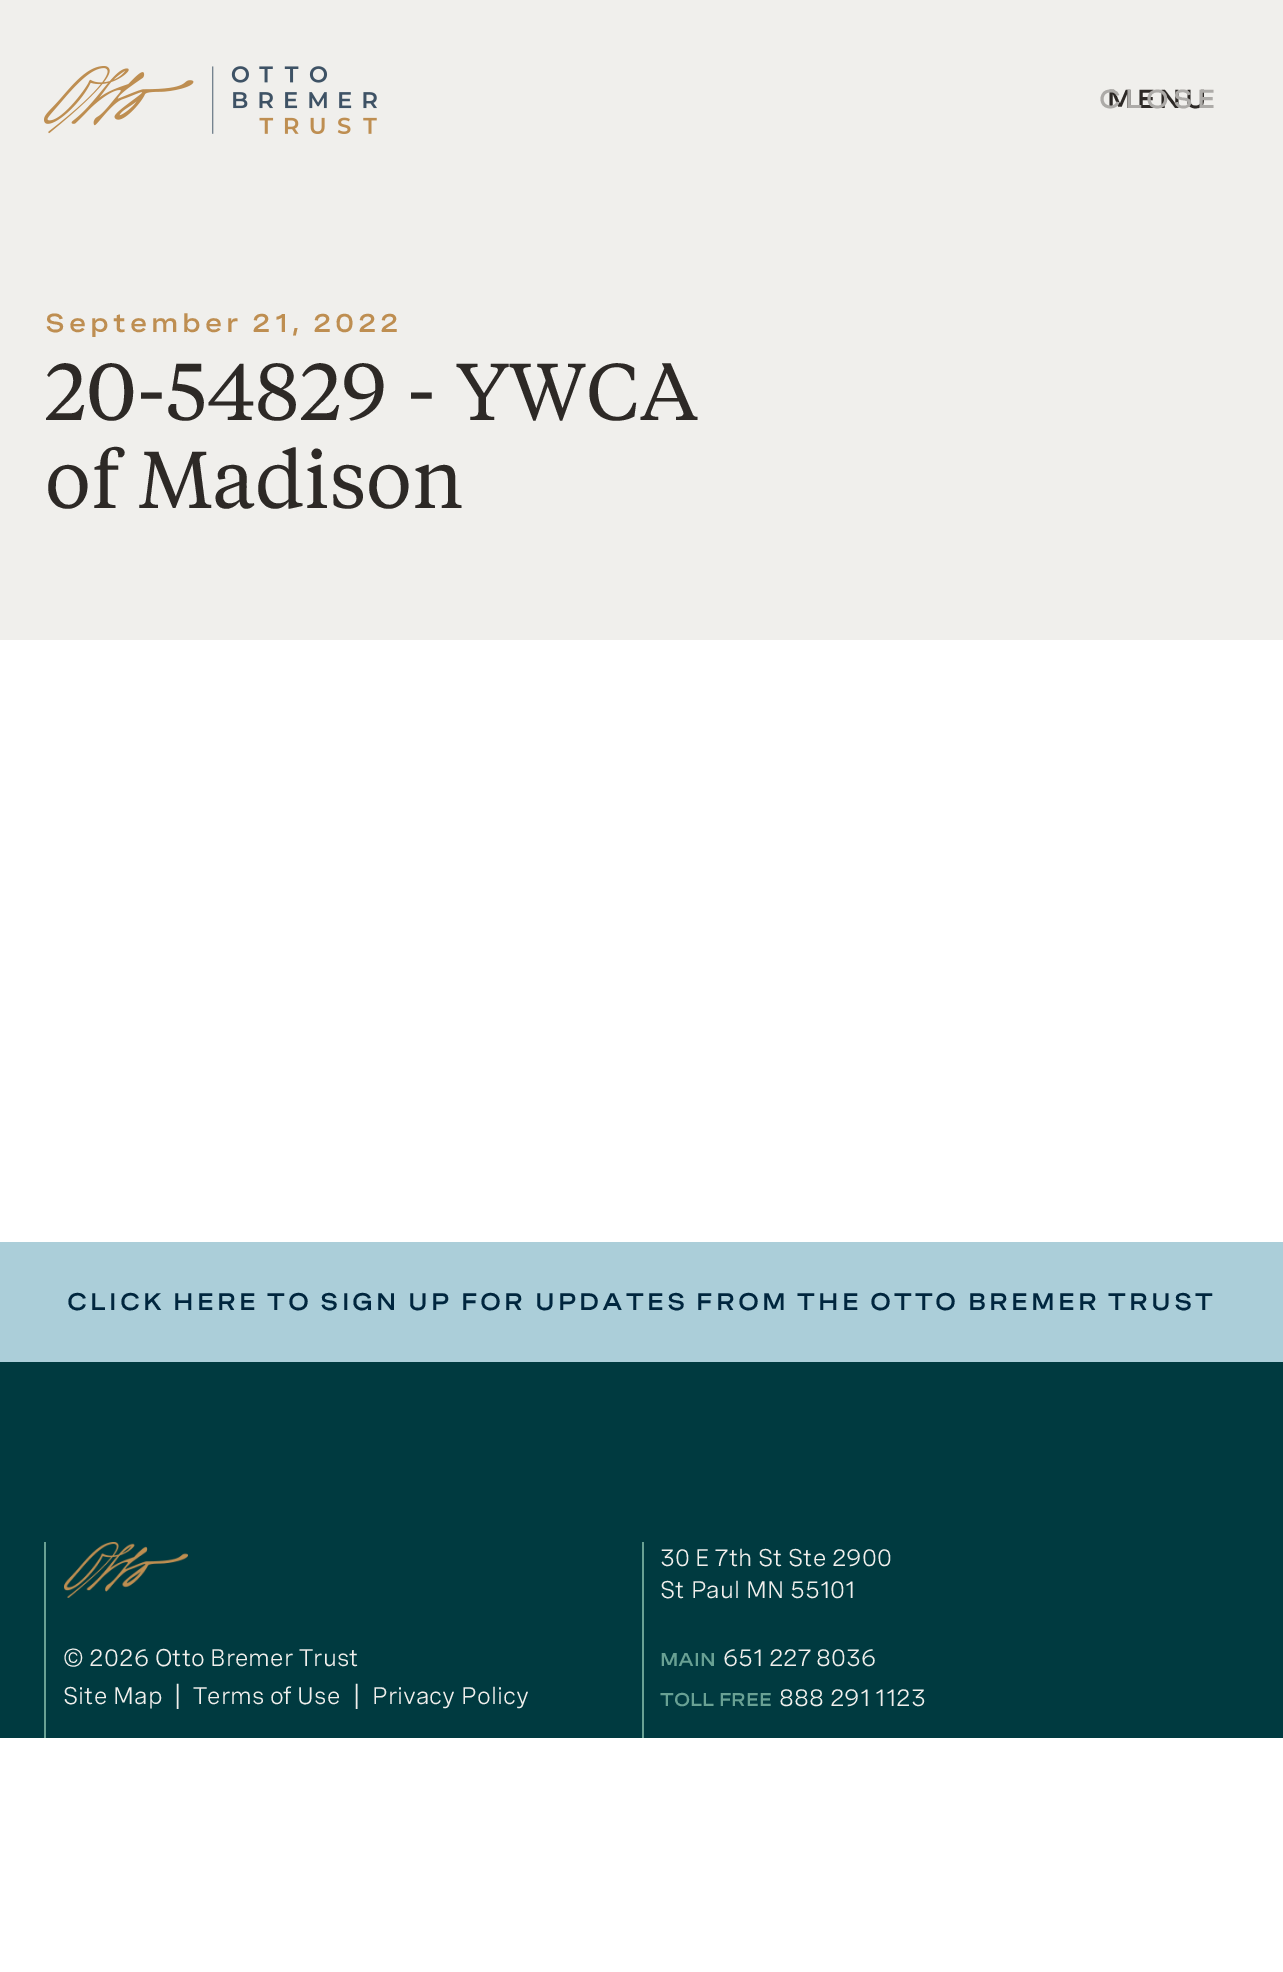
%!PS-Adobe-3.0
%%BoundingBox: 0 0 1283 1972
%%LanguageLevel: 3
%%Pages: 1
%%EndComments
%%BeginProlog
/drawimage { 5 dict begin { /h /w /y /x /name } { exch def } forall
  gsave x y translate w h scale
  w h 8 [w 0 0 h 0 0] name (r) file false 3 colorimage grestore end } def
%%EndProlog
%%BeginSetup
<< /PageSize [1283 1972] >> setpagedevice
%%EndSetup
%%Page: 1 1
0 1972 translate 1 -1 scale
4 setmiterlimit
1 setgray
0 0 1283 1972 rectfill
0.941 0.937 0.925 setrgbcolor
0 0 1283 640 rectfill
(images/1.raw) 44 66 333 68 drawimage
0 0.227 0.251 setrgbcolor
0 1362 1283 376 rectfill
0.671 0.808 0.851 setrgbcolor
0 1242 1283 120 rectfill
0.412 0.631 0.58 setrgbcolor
44 1542 2 196 rectfill
(images/2.raw) 64 1542 124 56 drawimage
642 1542 2 196 rectfill
/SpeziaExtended-SemiBold [26 0 0 -26 0 0] selectfont
0.176 0.161 0.149 setrgbcolor
1107 108 moveto 4 0 (MENU) ashow
0.678 0.671 0.659 setrgbcolor
1099 108 moveto 4 0 (CLOSE) ashow
0.745 0.557 0.318 setrgbcolor
45 332 moveto -1 0 32 4 0 (September 21, 2022) awidthshow
/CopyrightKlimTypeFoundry-Regular [80 0 0 -80 0 0] selectfont
0.176 0.161 0.149 setrgbcolor
45 420 moveto 2 0 32 (20-54829 - YWCA) widthshow
45 508 moveto (of Madison) show
/SpeziaExtended-SemiBold [24 0 0 -24 0 0] selectfont
0 0.149 0.243 setrgbcolor
67 1310 moveto -1 0 32 3 0 (CLICK HERE TO SIGN UP FOR UPDATES FROM THE OTTO BREMER TRUST) awidthshow
/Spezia-Regular [24 0 0 -24 0 0] selectfont
0.941 0.937 0.925 setrgbcolor
63 1666 moveto -0.5 0 32 (© 2026 Otto Bremer Trust) widthshow
63 1704 moveto (Site Map) show
/Spezia-Regular [28 0 0 -28 0 0] selectfont
174 1706 moveto (|) show
/Spezia-Regular [24 0 0 -24 0 0] selectfont
193 1704 moveto -1 0 32 (Terms of Use) widthshow
/Spezia-Regular [28 0 0 -28 0 0] selectfont
353 1706 moveto (|) show
/Spezia-Regular [24 0 0 -24 0 0] selectfont
372 1704 moveto (Privacy Policy) show
660 1566 moveto -0.5 0 32 (30 E 7th St Ste 2900) widthshow
660 1598 moveto (St Paul MN 55101) show
/SpeziaExtended-SemiBold [18.5 0 0 -18.5 0 0] selectfont
0.412 0.631 0.58 setrgbcolor
660 1666 moveto (MAIN) show
/Spezia-Regular [24 0 0 -24 0 0] selectfont
0.941 0.937 0.925 setrgbcolor
723 1666 moveto -1 0 32 (651 227 8036) widthshow
/SpeziaExtended-SemiBold [18.5 0 0 -18.5 0 0] selectfont
0.412 0.631 0.58 setrgbcolor
660 1706 moveto -1 0 32 (TOLL FREE) widthshow
/Spezia-Regular [24 0 0 -24 0 0] selectfont
0.941 0.937 0.925 setrgbcolor
779 1706 moveto -0.5 0 32 (888 291 1123) widthshow
showpage
%%EOF
